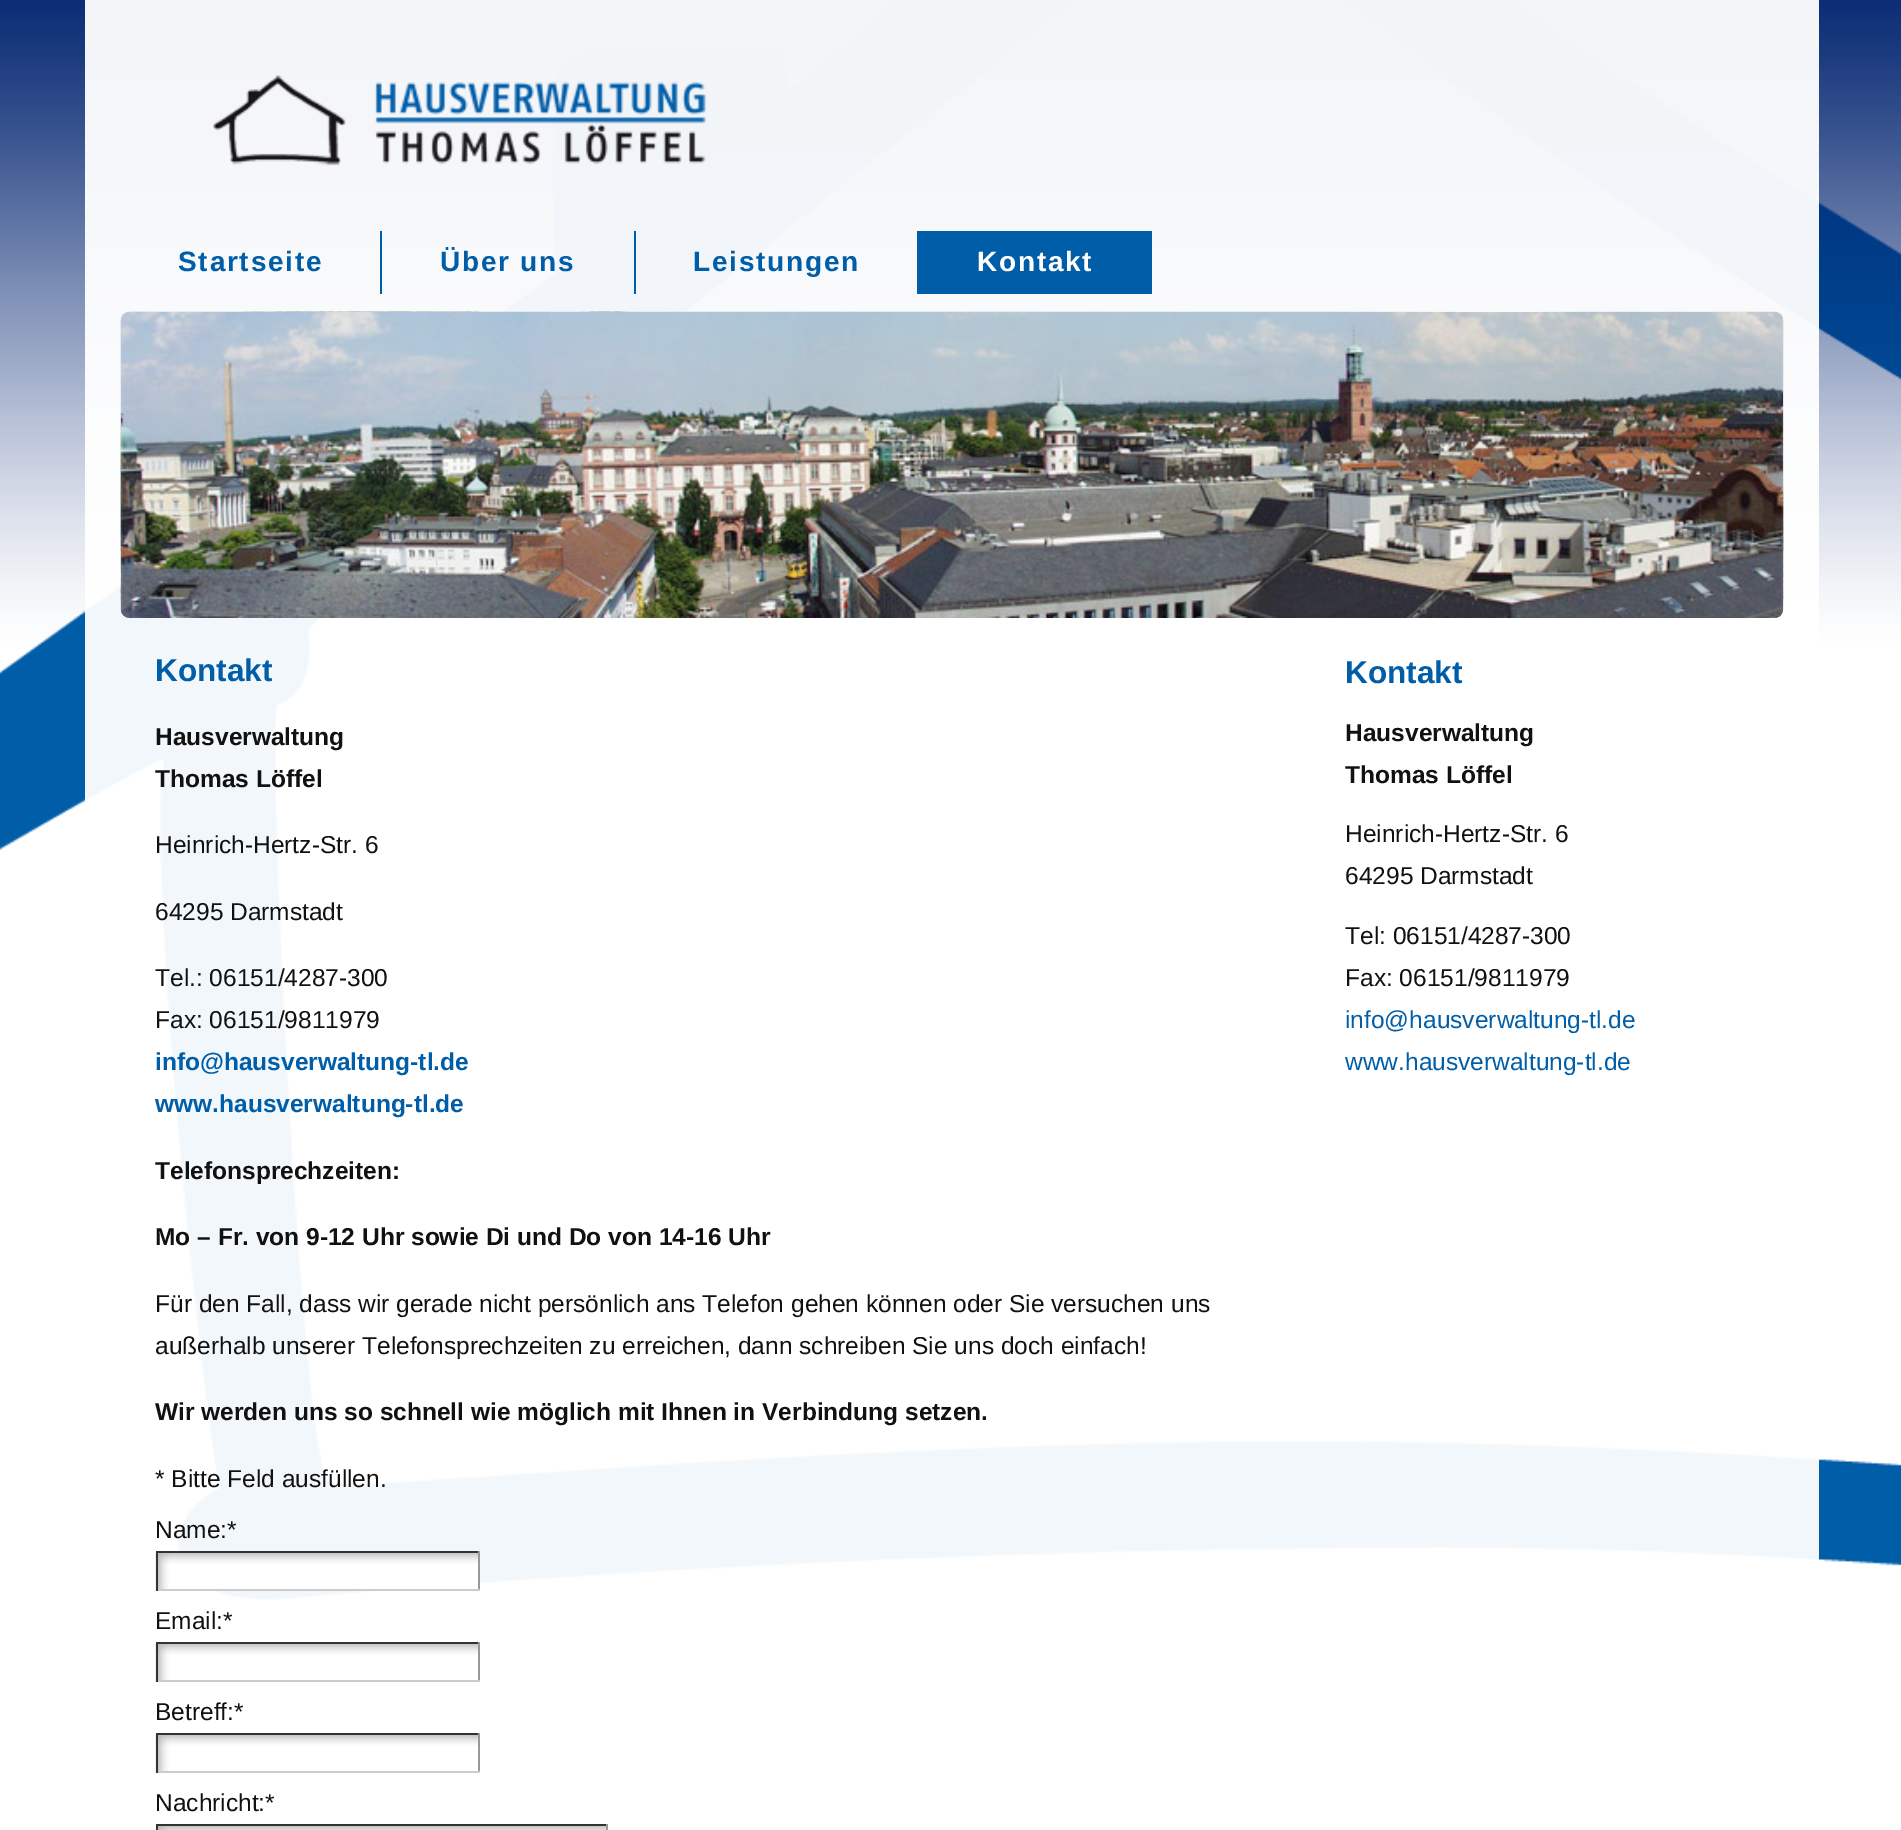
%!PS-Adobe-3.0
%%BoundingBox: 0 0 1901 1830
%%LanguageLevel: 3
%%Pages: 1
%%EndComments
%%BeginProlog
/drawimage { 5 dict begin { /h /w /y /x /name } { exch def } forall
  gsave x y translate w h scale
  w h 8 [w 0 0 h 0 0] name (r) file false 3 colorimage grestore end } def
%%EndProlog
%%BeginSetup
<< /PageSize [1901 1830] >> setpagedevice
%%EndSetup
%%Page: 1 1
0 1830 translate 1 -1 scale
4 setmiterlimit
1 setgray
0 0 1901 1830 rectfill
(images/1.raw) 0 0 1901 1601 drawimage
(images/2.raw) 213 75 493 91 drawimage
0 0.369 0.659 setrgbcolor
380 231 2 63 rectfill
634 231 2 63 rectfill
917 231 235 63 rectfill
(images/3.raw) 120 311 1664 307 drawimage
(images/4.raw) 120 311 1664 307 drawimage
(images/5.raw) 155 1552 323 39 drawimage
0.2 setgray
156 1551 324 2 rectfill
0.6 setgray
478 1551 2 40 rectfill
0.8 setgray
156 1589 324 2 rectfill
0.2 setgray
156 1551 2 40 rectfill
(images/6.raw) 155 1643 323 39 drawimage
156 1642 324 2 rectfill
0.6 setgray
478 1642 2 40 rectfill
0.8 setgray
156 1680 324 2 rectfill
0.2 setgray
156 1642 2 40 rectfill
(images/6.raw) 155 1734 323 39 drawimage
156 1733 324 2 rectfill
0.6 setgray
478 1733 2 40 rectfill
0.8 setgray
156 1771 324 2 rectfill
0.2 setgray
156 1733 2 40 rectfill
(images/7.raw) 158 1826 448 4 drawimage
156 1824 451 2 rectfill
0.6 setgray
606 1824 2 6 rectfill
0.2 setgray
156 1824 2 6 rectfill
/LiberationSans-Bold [28 0 0 -28 0 0] selectfont
0 0.369 0.659 setrgbcolor
178 271 moveto 1.75 0 (Startseite) ashow
440 271 moveto 1.75 0 (Über uns) ashow
693 271 moveto 1.75 0 (Leistungen) ashow
1 setgray
977 271 moveto 1.75 0 (Kontakt) ashow
/LiberationSans-Bold [31.5 0 0 -31.5 0 0] selectfont
0 0.369 0.659 setrgbcolor
155 681 moveto (Kontakt) show
/LiberationSans-Bold [24.5 0 0 -24.5 0 0] selectfont
0.067 setgray
155 745 moveto (Hausverwaltung) show
155 787 moveto (Thomas Löffel) show
/LiberationSans-Regular [24.5 0 0 -24.5 0 0] selectfont
155 853 moveto (Heinrich-Hertz-Str. 6) show
155 920 moveto (64295 Darmstadt) show
155 986 moveto (Tel.: 06151/4287-300) show
155 1028 moveto (Fax: 06151/9811979) show
/LiberationSans-Bold [24.5 0 0 -24.5 0 0] selectfont
0 0.369 0.659 setrgbcolor
155 1070 moveto (info@hausverwaltung-tl.de) show
155 1112 moveto (www.hausverwaltung-tl.de) show
0.067 setgray
155 1179 moveto (Telefonsprechzeiten:) show
155 1245 moveto (Mo – Fr. von 9-12 Uhr sowie Di und Do von 14-16 Uhr) show
/LiberationSans-Regular [24.5 0 0 -24.5 0 0] selectfont
155 1312 moveto (Für den Fall, dass wir gerade nicht persönlich ans Telefon gehen können oder Sie versuchen uns) show
155 1354 moveto (außerhalb unserer Telefonsprechzeiten zu erreichen, dann schreiben Sie uns doch einfach!) show
/LiberationSans-Bold [24.5 0 0 -24.5 0 0] selectfont
155 1420 moveto (Wir werden uns so schnell wie möglich mit Ihnen in Verbindung setzen.) show
/LiberationSans-Regular [24.5 0 0 -24.5 0 0] selectfont
155 1487 moveto (* Bitte Feld ausfüllen.) show
155 1538 moveto (Name:*) show
155 1629 moveto (Email:*) show
155 1720 moveto (Betreff:*) show
155 1811 moveto (Nachricht:*) show
/LiberationSans-Bold [31.5 0 0 -31.5 0 0] selectfont
0 0.369 0.659 setrgbcolor
1345 683 moveto (Kontakt) show
/LiberationSans-Bold [24.5 0 0 -24.5 0 0] selectfont
0.067 setgray
1345 741 moveto (Hausverwaltung) show
1345 783 moveto (Thomas Löffel) show
/LiberationSans-Regular [24.5 0 0 -24.5 0 0] selectfont
1345 842 moveto (Heinrich-Hertz-Str. 6) show
1345 884 moveto (64295 Darmstadt) show
1345 944 moveto (Tel: 06151/4287-300) show
1345 986 moveto (Fax: 06151/9811979) show
0 0.369 0.659 setrgbcolor
1345 1028 moveto (info@hausverwaltung-tl.de) show
1345 1070 moveto (www.hausverwaltung-tl.de) show
showpage
%%EOF
